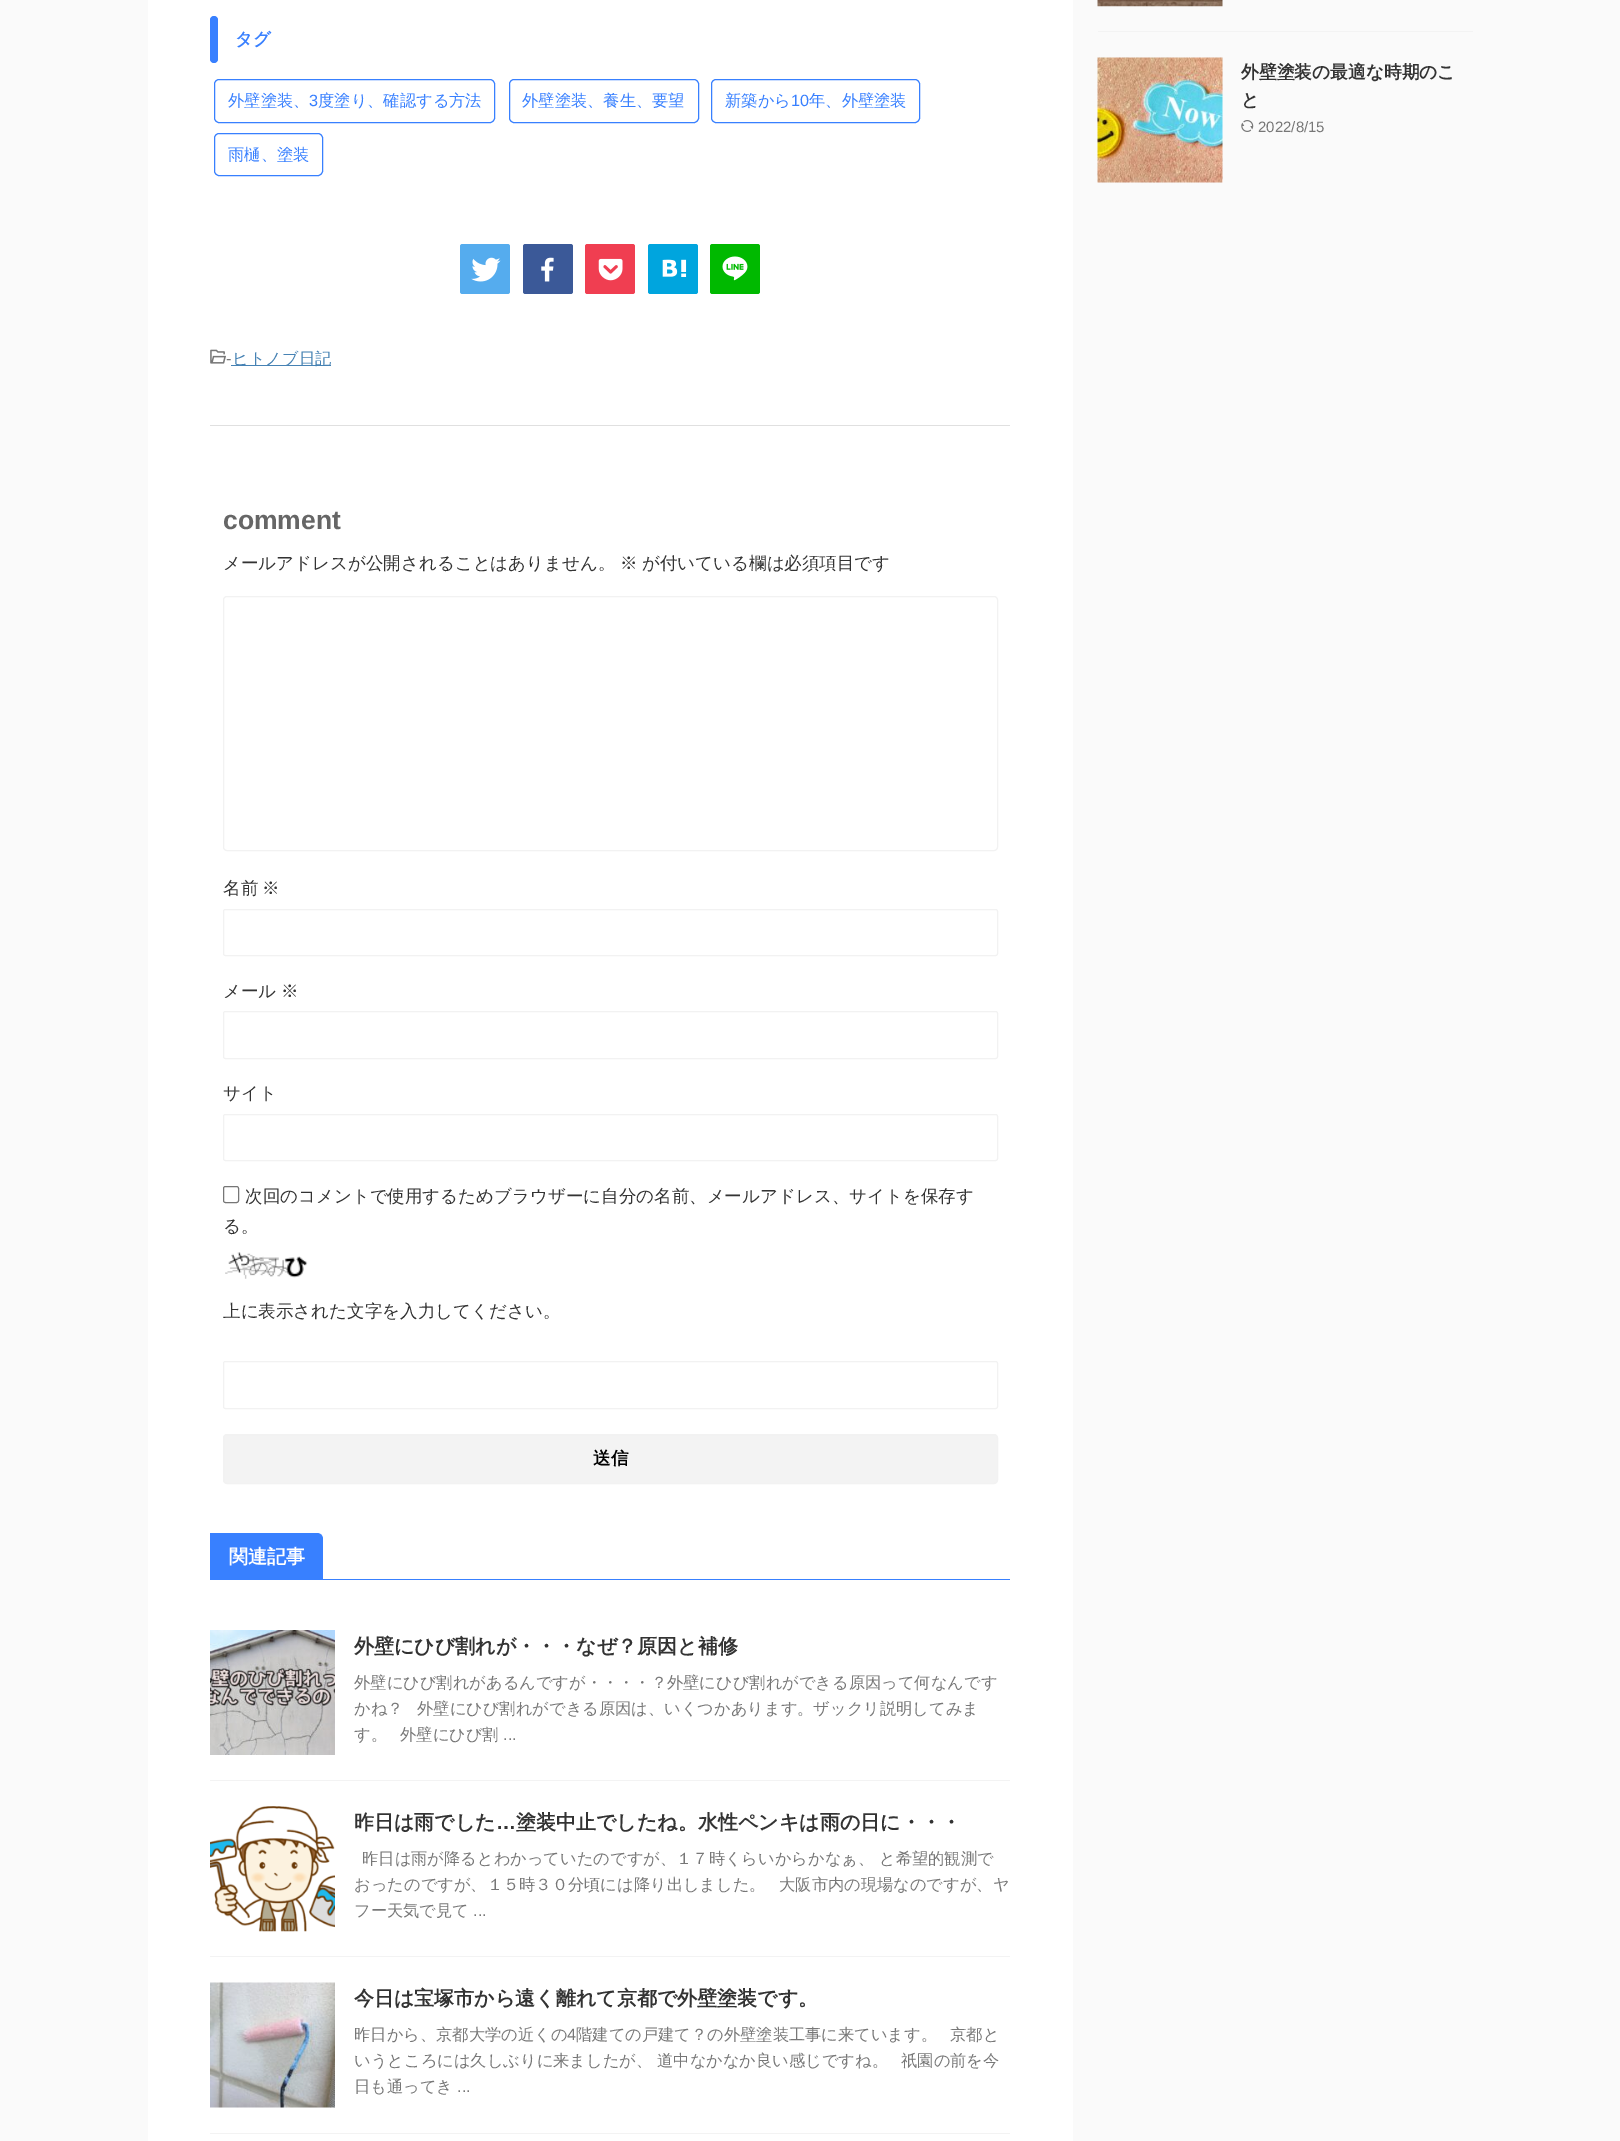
%!PS-Adobe-3.0
%%BoundingBox: 0 0 1620 2141
%%LanguageLevel: 3
%%Pages: 1
%%EndComments
%%BeginProlog
/rrect { 5 dict begin { /r /h /w /y /x } { exch def } forall
  x r add y moveto x w add y 2 copy h add r arct x w add y h add x 1 index r arct
  x y h add x y r arct x y 2 copy exch w add exch r arct closepath end } def
/drawimage { 5 dict begin { /h /w /y /x /name } { exch def } forall
  gsave x y translate w h scale
  w h 8 [w 0 0 h 0 0] name (r) file false 3 colorimage grestore end } def
%%EndProlog
%%BeginSetup
<< /PageSize [1620 2141] >> setpagedevice
%%EndSetup
%%Page: 1 1
0 2141 translate 1 -1 scale
4 setmiterlimit
0.98 setgray
0 0 1620 2141 rectfill
1 setgray
148 0 925 2141 rectfill
0.22 0.502 1 setrgbcolor
210 16 8 47 4 rrect fill
214.5 79.5 280 43 4.5 rrect stroke
509.5 79.5 189 43 4.5 rrect stroke
711.5 79.5 208 43 4.5 rrect stroke
214.5 133.5 108 42 4.5 rrect stroke
0.333 0.675 0.933 setrgbcolor
460 244 50 50 2.5 rrect fill
(images/1.raw) 471 257 30 25 drawimage
0.231 0.349 0.596 setrgbcolor
523 244 50 50 2.5 rrect fill
(images/2.raw) 541 257 13 25 drawimage
0.941 0.243 0.318 setrgbcolor
585 244 50 50 2.5 rrect fill
(images/3.raw) 598 258 25 23 drawimage
0 0.647 0.871 setrgbcolor
648 244 50 50 2.5 rrect fill
(images/4.raw) 662 259 25 18 drawimage
0 0.725 0 setrgbcolor
710 244 50 50 2.5 rrect fill
(images/5.raw) 722 256 26 25 drawimage
(images/6.raw) 210 349 16 15 drawimage
0.275 0.51 0.706 setrgbcolor
231 365 100 1 rectfill
0.878 setgray
210 425 800 1 rectfill
0.949 setgray
223.5 596.5 774 254 3.5 rrect stroke
223.5 909.5 774 46 2 rrect stroke
223.5 1011.5 774 47 2 rrect stroke
223.5 1114.5 774 46 2 rrect stroke
0.463 setgray
223.5 1186.5 15 16 2 rrect stroke
(images/7.raw) 225 1252 83 27 drawimage
0.949 setgray
223.5 1361.5 774 47 2 rrect stroke
0.953 setgray
223.5 1434.5 774 49 3.5 rrect gsave fill grestore
0.949 setgray
stroke
0.22 0.502 1 setrgbcolor
210 1579 800 1 rectfill
newpath 210 1533 moveto 317 1533 lineto 320.5 1533 323 1535.5 323 1539 curveto 323 1579 lineto 210 1579 lineto closepath fill
0.953 setgray
210 1780 800 1 rectfill
(images/8.raw) 210 1630 125 125 drawimage
210 1956 800 1 rectfill
(images/9.raw) 210 1806 125 126 drawimage
210 2133 800 1 rectfill
(images/10.raw) 210 1982 125 126 drawimage
1098 31 375 1 rectfill
(images/11.raw) 1097 0 126 7 drawimage
(images/12.raw) 1097 57 126 126 drawimage
(images/13.raw) 1241 120 13 12 drawimage
/WenQuanYiZenHei-Bold [17.5 0 0 -17.5 0 0] selectfont
0.22 0.502 1 setrgbcolor
235 45 moveto (タグ) show
/WenQuanYiZenHei-Medium [16.25 0 0 -16.25 0 0] selectfont
228 106 moveto (外壁塗装、) show
/LiberationSans-Regular [16.25 0 0 -16.25 0 0] selectfont
309 106 moveto (3) show
/WenQuanYiZenHei-Medium [16.25 0 0 -16.25 0 0] selectfont
318 106 moveto (度塗り、確認する方法) show
522 106 moveto (外壁塗装、養生、要望) show
725 106 moveto (新築から) show
/LiberationSans-Regular [16.25 0 0 -16.25 0 0] selectfont
791 106 moveto (10) show
/WenQuanYiZenHei-Medium [16.25 0 0 -16.25 0 0] selectfont
809 106 moveto (年、外壁塗装) show
228 160 moveto (雨樋、塗装) show
/LiberationSans-Regular [16.25 0 0 -16.25 0 0] selectfont
0.467 setgray
226 364 moveto (-) show
/WenQuanYiZenHei-Medium [16.25 0 0 -16.25 0 0] selectfont
0.275 0.51 0.706 setrgbcolor
232 364 moveto (ヒトノブ日記) show
/LiberationSans-Bold [26.5 0 0 -26.5 0 0] selectfont
0.4 setgray
223 529 moveto (comment) show
/WenQuanYiZenHei-Medium [17.5 0 0 -17.5 0 0] selectfont
0.2 setgray
223 569 moveto (メールアドレスが公開されることはありません。) show
620 569 moveto (※) show
642 569 moveto (が付いている欄は必須項目です) show
223 894 moveto (名前) show
262 894 moveto (※) show
223 997 moveto (メール) show
281 997 moveto (※) show
223 1099 moveto (サイト) show
245 1202 moveto (次回のコメントで使用するためブラウザーに自分の名前、メールアドレス、サイトを保存す) show
223 1232 moveto (る。) show
223 1317 moveto (上に表示された文字を入力してください。) show
/WenQuanYiZenHei-Bold [17.5 0 0 -17.5 0 0] selectfont
0 setgray
593 1464 moveto (送信) show
/WenQuanYiZenHei-Bold [19 0 0 -19 0 0] selectfont
1 setgray
229 1563 moveto (関連記事) show
/WenQuanYiZenHei-Bold [20 0 0 -20 0 0] selectfont
0.2 setgray
354 1653 moveto (外壁にひび割れが・・・なぜ？原因と補修) show
/WenQuanYiZenHei-Medium [16.25 0 0 -16.25 0 0] selectfont
0.467 setgray
354 1688 moveto (外壁にひび割れがあるんですが・・・・？外壁にひび割れができる原因って何なんです) show
354 1714 moveto (かね？) show
417 1714 moveto (外壁にひび割れができる原因は、いくつかあります。ザックリ説明してみま) show
354 1740 moveto (す。) show
400 1740 moveto (外壁にひび割) show
/LiberationSans-Regular [16.25 0 0 -16.25 0 0] selectfont
503 1740 moveto (...) show
/WenQuanYiZenHei-Bold [20 0 0 -20 0 0] selectfont
0.2 setgray
354 1829 moveto (昨日は雨でした) show
/LiberationSans-Bold [20 0 0 -20 0 0] selectfont
496 1829 moveto (…) show
/WenQuanYiZenHei-Bold [20 0 0 -20 0 0] selectfont
516 1829 moveto (塗装中止でしたね。水性ペンキは雨の日に・・・) show
/WenQuanYiZenHei-Medium [16.25 0 0 -16.25 0 0] selectfont
0.467 setgray
362 1864 moveto (昨日は雨が降るとわかっていたのですが、１７時くらいからかなぁ、 と希望的観測で) show
354 1890 moveto (おったのですが、１５時３０分頃には降り出しました。) show
779 1890 moveto (大阪市内の現場なのですが、ヤ) show
354 1916 moveto (フー天気で見て) show
/LiberationSans-Regular [16.25 0 0 -16.25 0 0] selectfont
473 1916 moveto (...) show
/WenQuanYiZenHei-Bold [20 0 0 -20 0 0] selectfont
0.2 setgray
354 2005 moveto (今日は宝塚市から遠く離れて京都で外壁塗装です。) show
/WenQuanYiZenHei-Medium [16.25 0 0 -16.25 0 0] selectfont
0.467 setgray
354 2040 moveto (昨日から、京都大学の近くの) show
/LiberationSans-Regular [16.25 0 0 -16.25 0 0] selectfont
567 2040 moveto (4) show
/WenQuanYiZenHei-Medium [16.25 0 0 -16.25 0 0] selectfont
576 2040 moveto (階建ての戸建て？の外壁塗装工事に来ています。) show
950 2040 moveto (京都と) show
354 2066 moveto (いうところには久しぶりに来ましたが、 道中なかなか良い感じですね。) show
901 2066 moveto (祇園の前を今) show
354 2092 moveto (日も通ってき) show
/LiberationSans-Regular [16.25 0 0 -16.25 0 0] selectfont
457 2092 moveto (...) show
/WenQuanYiZenHei-Bold [17.75 0 0 -17.75 0 0] selectfont
0.2 setgray
1241 78 moveto (外壁塗装の最適な時期のこ) show
1241 106 moveto (と) show
/LiberationSans-Regular [15 0 0 -15 0 0] selectfont
0.467 setgray
1258 132 moveto (2022/8/15) show
showpage
%%EOF
